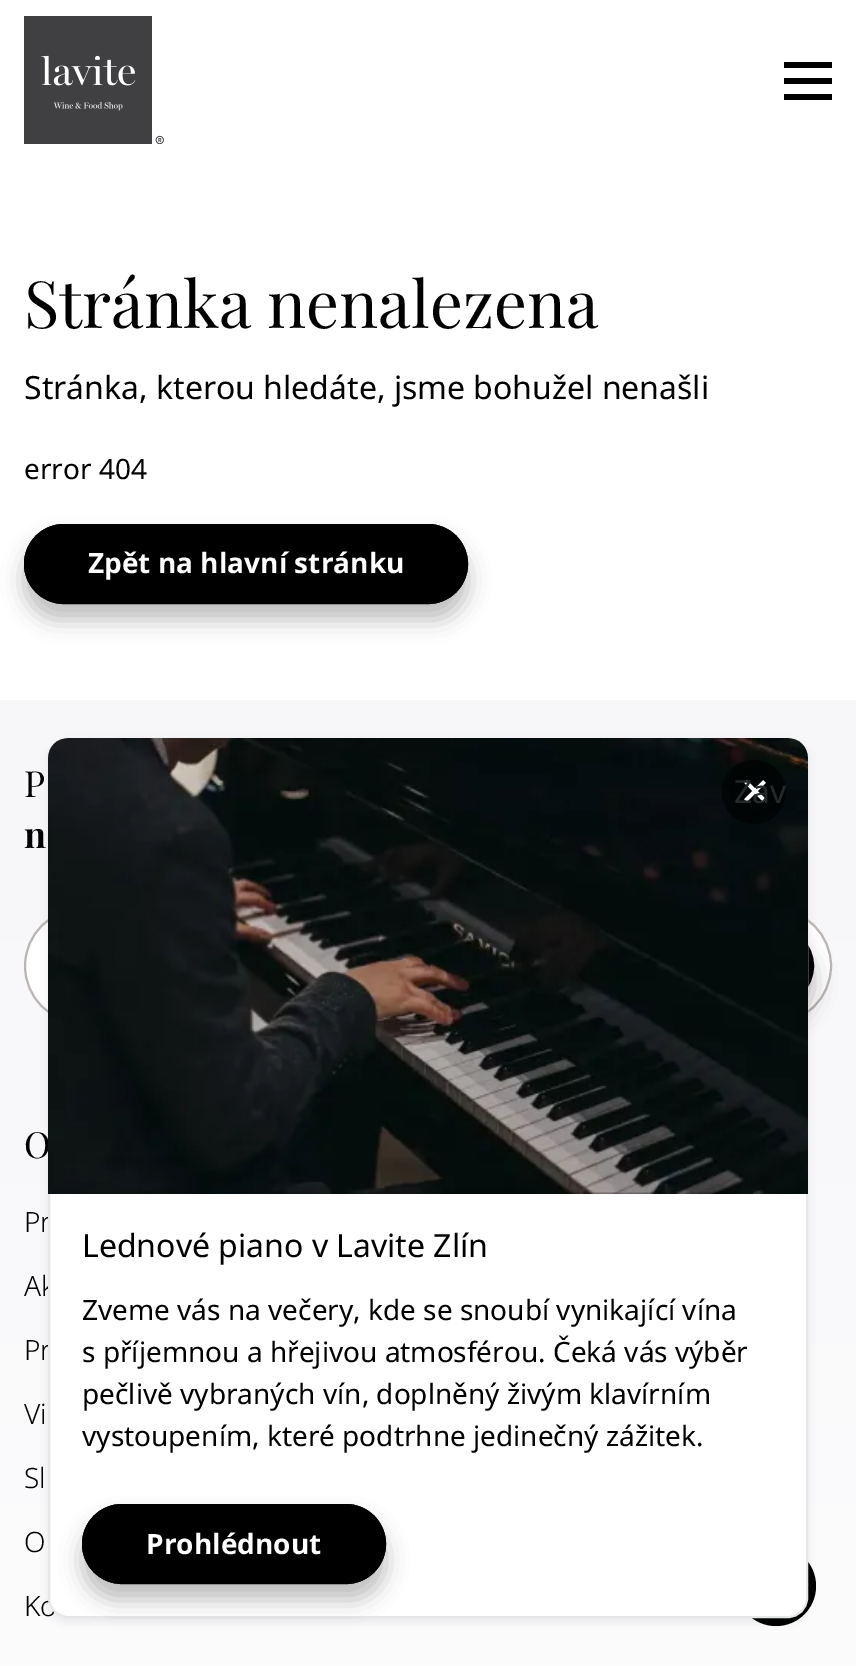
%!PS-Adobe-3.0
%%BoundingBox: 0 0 856 1666
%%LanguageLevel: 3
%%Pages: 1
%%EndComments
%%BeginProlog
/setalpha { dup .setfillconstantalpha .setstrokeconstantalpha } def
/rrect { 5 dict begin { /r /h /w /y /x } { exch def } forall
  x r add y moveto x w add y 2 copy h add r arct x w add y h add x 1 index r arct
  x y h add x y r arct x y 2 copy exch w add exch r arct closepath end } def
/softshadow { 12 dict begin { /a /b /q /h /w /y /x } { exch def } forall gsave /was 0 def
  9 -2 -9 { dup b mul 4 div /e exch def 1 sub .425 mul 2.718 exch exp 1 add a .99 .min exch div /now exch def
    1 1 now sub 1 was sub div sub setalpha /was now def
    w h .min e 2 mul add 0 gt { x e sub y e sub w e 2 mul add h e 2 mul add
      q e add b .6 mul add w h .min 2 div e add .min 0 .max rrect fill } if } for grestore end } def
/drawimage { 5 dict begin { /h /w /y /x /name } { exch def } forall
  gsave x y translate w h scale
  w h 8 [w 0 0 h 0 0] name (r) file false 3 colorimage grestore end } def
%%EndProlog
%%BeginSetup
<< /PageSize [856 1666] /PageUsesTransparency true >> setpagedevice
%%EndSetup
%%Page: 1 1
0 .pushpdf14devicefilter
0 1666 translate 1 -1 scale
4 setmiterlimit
1 setgray
0 0 856 1666 rectfill
(images/1.raw) 24 16 140 128 drawimage
0 setgray
784 62 48 6 rectfill
784 94 48 6 rectfill
784 78 48 6 rectfill
24 540 444 80 40 11 0.25 softshadow
24 524 444 80 40 rrect fill
2 setlinewidth
25 525 442 78 39 rrect stroke
gsave newpath 0 700 moveto 856 700 lineto 856 1666 lineto 0 1666 lineto closepath clip newpath
<< /ShadingType 2 /ColorSpace /DeviceRGB /Coords [428 700 428 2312] /Extend [true true] /Function << /FunctionType 2 /Domain [0 1] /C0 [0.969 0.969 0.98] /C1 [1 1 1] /N 1 >> >> shfill grestore
1 setgray
25 909 806 114 57 rrect gsave fill grestore
0.733 0.714 0.706 setrgbcolor
stroke
0 setgray
578 942 236 80 40 11 0.25 softshadow
579 927 234 78 39 rrect gsave fill grestore
stroke
newpath 776 1586 40 0 360 arc closepath fill
0.122 0.129 0.141 setrgbcolor
48 742 760 880 20 4 0.08 softshadow
/PlayfairDisplay-Regular [65.25 0 0 -65.25 0 0] selectfont
0 setgray
24 328 moveto (Stránka nenalezena) show
/NotoSans-Regular [32 0 0 -32 0 0] selectfont
24 399 moveto (Stránka, kterou hledáte, jsme bohužel nenašli) show
/NotoSans-Regular [28 0 0 -28 0 0] selectfont
24 479 moveto (error 404) show
/NotoSans-Bold [28 0 0 -28 0 0] selectfont
1 setgray
88 573 moveto (Zpět na hlavní stránku) show
/PlayfairDisplay-Regular [36 0 0 -36 0 0] selectfont
0 setgray
24 797 moveto (P) show
/PlayfairDisplay-Bold [36 0 0 -36 0 0] selectfont
24 848 moveto (n) show
/PlayfairDisplay-Regular [36 0 0 -36 0 0] selectfont
24 1158 moveto (O) show
/NotoSans-Light [28 0 0 -28 0 0] selectfont
24 1232 moveto (Pr) show
24 1296 moveto (Ak) show
24 1360 moveto (Pr) show
24 1424 moveto (Vi) show
24 1488 moveto (Sl) show
24 1552 moveto (O) show
24 1616 moveto (Ko) show
1 setgray
49 739 758 878 19 rrect gsave fill grestore
0.906 setgray
stroke
(images/2.raw) 48 738 760 456 drawimage
0.64 setalpha
0 setgray
newpath 754 792 32 0 360 arc closepath fill
1 setalpha
(images/3.raw) 744 780 22 22 drawimage
gsave
722 760 64 64 32 rrect clip newpath
/NotoSans-Regular [32 0 0 -32 0 0] selectfont
0.149 0.161 0.161 setrgbcolor
734 803 moveto (Zav) show
grestore
/NotoSans-Regular [32 0 0 -32 0 0] selectfont
82 1257 moveto (Lednové piano v Lavite Zlín) show
/NotoSans-Regular [28 0 0 -28 0 0] selectfont
82 1320 moveto (Zveme vás na večery, kde se snoubí vynikající vína) show
82 1362 moveto (s příjemnou a hřejivou atmosférou. Čeká vás výběr) show
82 1404 moveto (pečlivě vybraných vín, doplněný živým klavírním) show
82 1446 moveto (vystoupením, které podtrhne jedinečný zážitek.) show
82 1520 304 80 40 11 0.25 softshadow
82 1504 304 80 40 rrect fill
83 1505 302 78 39 rrect stroke
/NotoSans-Bold [28 0 0 -28 0 0] selectfont
1 setgray
146 1554 moveto (Prohlédnout) show
.poppdf14devicefilter showpage
%%EOF
